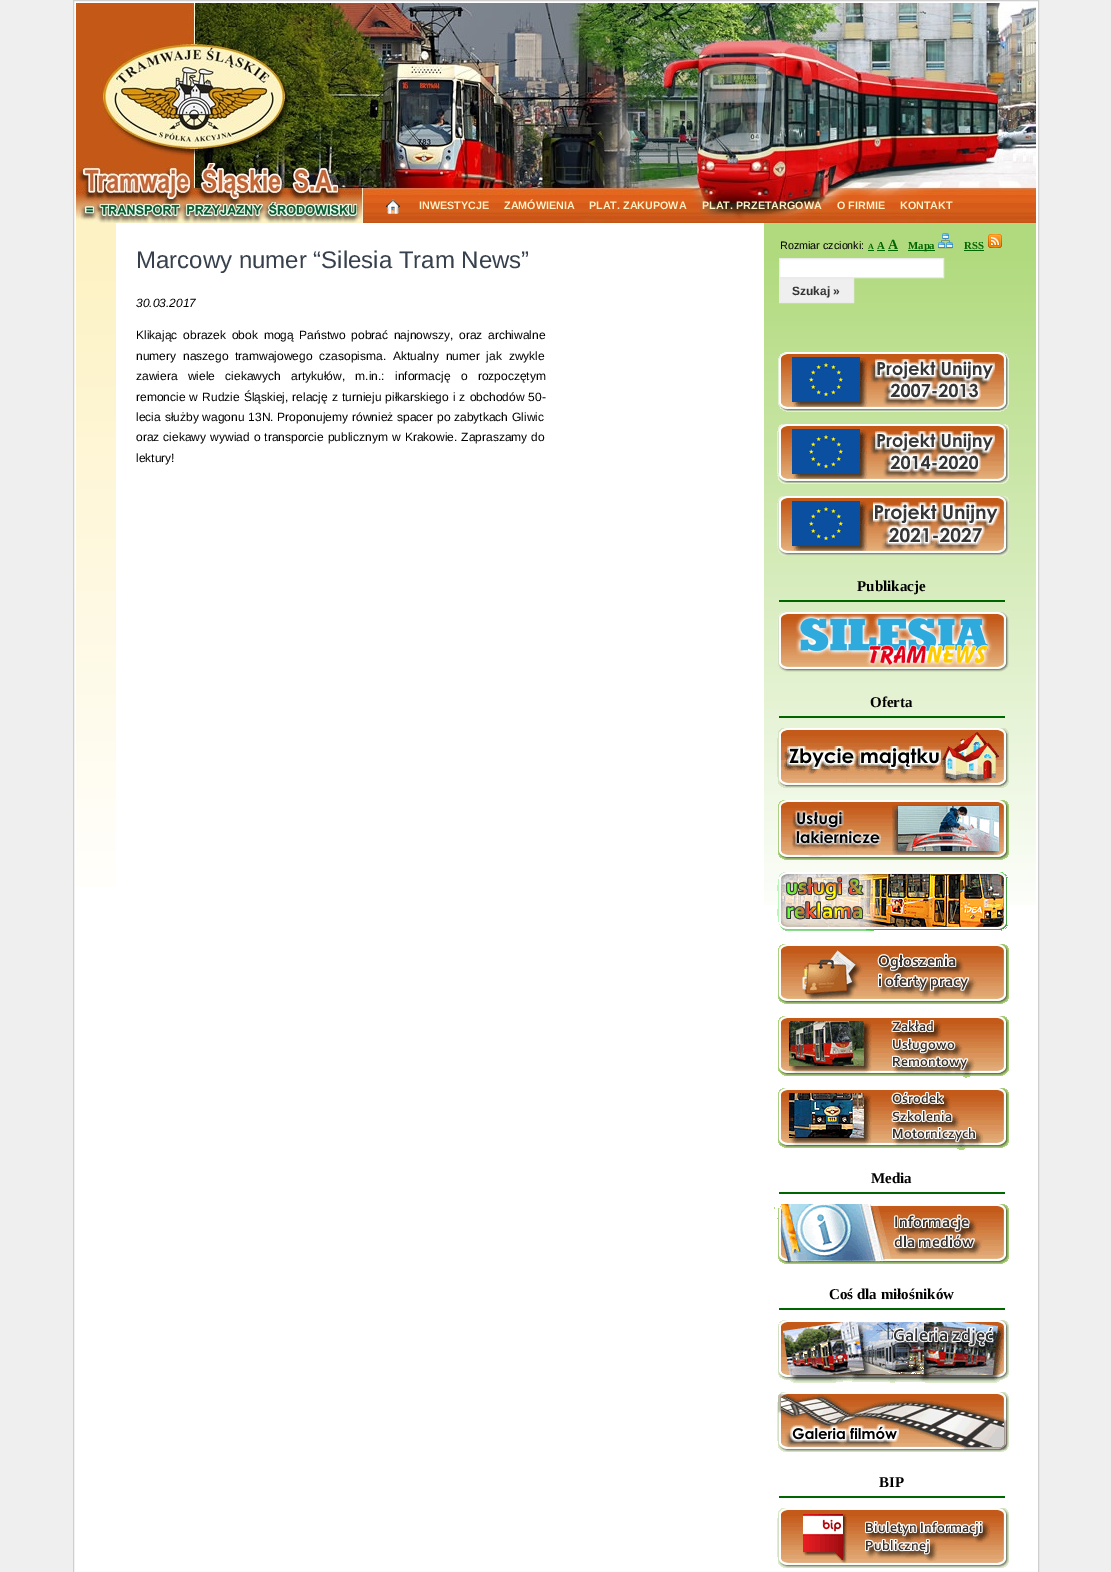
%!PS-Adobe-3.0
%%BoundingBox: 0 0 1111 1572
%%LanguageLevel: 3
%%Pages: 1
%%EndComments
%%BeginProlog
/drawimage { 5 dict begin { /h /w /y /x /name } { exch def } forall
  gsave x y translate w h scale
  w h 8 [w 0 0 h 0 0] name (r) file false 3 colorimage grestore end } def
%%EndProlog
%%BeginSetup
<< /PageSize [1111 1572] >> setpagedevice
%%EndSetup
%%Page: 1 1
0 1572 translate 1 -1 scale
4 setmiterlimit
0.937 setgray
0 0 1111 1572 rectfill
1 setgray
newpath 73.5 0.5 moveto 1038.5 0.5 lineto 1038.5 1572.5 lineto 73.5 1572.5 lineto closepath gsave fill grestore
0.812 setgray
stroke
(images/1.raw) 76 3 960 220 drawimage
(images/2.raw) 386 199 14 15 drawimage
(images/3.raw) 76 223 40 664 drawimage
(images/4.raw) 764 223 272 682 drawimage
0 0.4 0 setrgbcolor
868 250 6 1 rectfill
877 250 8 1 rectfill
888 250 10 1 rectfill
908 250 27 1 rectfill
(images/5.raw) 938 233 15 16 drawimage
964 250 20 1 rectfill
(images/6.raw) 988 234 14 14 drawimage
1 setgray
newpath 779.5 258.5 moveto 943.5 258.5 lineto 943.5 277.5 lineto 779.5 277.5 lineto closepath gsave fill grestore
0.922 setgray
stroke
0.937 setgray
newpath 779.5 278.5 moveto 853.5 278.5 lineto 853.5 302.5 lineto 779.5 302.5 lineto closepath gsave fill grestore
0.922 setgray
stroke
(images/7.raw) 778 352 231 60 drawimage
(images/8.raw) 777 424 232 60 drawimage
(images/9.raw) 777 496 232 60 drawimage
0 0.4 0 setrgbcolor
779 600 226 2 rectfill
(images/10.raw) 777 612 232 60 drawimage
779 716 226 2 rectfill
(images/11.raw) 777 728 232 60 drawimage
(images/12.raw) 778 800 231 60 drawimage
(images/13.raw) 777 872 231 59 drawimage
(images/14.raw) 778 944 231 60 drawimage
(images/15.raw) 778 1016 231 62 drawimage
(images/16.raw) 778 1088 231 62 drawimage
779 1192 226 2 rectfill
(images/17.raw) 774 1204 235 60 drawimage
779 1308 226 2 rectfill
(images/18.raw) 778 1320 231 63 drawimage
(images/19.raw) 777 1392 232 60 drawimage
779 1496 226 2 rectfill
(images/20.raw) 777 1508 232 60 drawimage
/LiberationSans-Bold [10.75 0 0 -10.75 0 0] selectfont
0.992 0.949 0.769 setrgbcolor
419 209 moveto (INWESTYCJE) show
504 209 moveto (ZAMÓWIENIA) show
589 209 moveto (PLAT. ZAKUPOWA) show
702 209 moveto (PLAT. PRZETARGOWA) show
837 209 moveto (O FIRMIE) show
900 209 moveto (KONTAKT) show
/LiberationSans-Regular [24 0 0 -24 0 0] selectfont
0.216 0.251 0.298 setrgbcolor
136 268 moveto (Marcowy numer “Silesia Tram News”) show
/LiberationSans-Italic [12 0 0 -12 0 0] selectfont
0 setgray
136 307 moveto (30.03.2017) show
/LiberationSans-Regular [12 0 0 -12 0 0] selectfont
136 339 moveto 2.5 0 32 (Klikając obrazek obok mogą Państwo pobrać najnowszy, oraz archiwalne) widthshow
136 360 moveto 3.5 0 32 (numery naszego tramwajowego czasopisma. Aktualny numer jak zwykle) widthshow
136 380 moveto 7 0 32 (zawiera wiele ciekawych artykułów, m.in.: informację o rozpoczętym) widthshow
136 401 moveto 0.75 0 32 (remoncie w Rudzie Śląskiej, relację z turnieju piłkarskiego i z obchodów 50-) widthshow
136 421 moveto 0.5 0 32 (lecia służby wagonu 13N. Proponujemy również spacer po zabytkach Gliwic) widthshow
136 441 moveto 0.75 0 32 (oraz ciekawy wywiad o transporcie publicznym w Krakowie. Zapraszamy do) widthshow
136 462 moveto (lektury!) show
/LiberationSans-Regular [10.75 0 0 -10.75 0 0] selectfont
780 249 moveto (Rozmiar czcionki:) show
/LiberationSerif-Bold [8 0 0 -8 0 0] selectfont
0 0.4 0 setrgbcolor
868 249 moveto (A) show
/LiberationSerif-Bold [10.75 0 0 -10.75 0 0] selectfont
877 249 moveto (A) show
/LiberationSerif-Bold [14 0 0 -14 0 0] selectfont
888 249 moveto (A) show
/LiberationSerif-Bold [10.75 0 0 -10.75 0 0] selectfont
908 249 moveto (Mapa) show
964 249 moveto (RSS) show
/LiberationSans-Bold [12 0 0 -12 0 0] selectfont
0.2 setgray
792 295 moveto (Szukaj ») show
/LiberationSerif-Bold [15 0 0 -15 0 0] selectfont
0 setgray
857 591 moveto (Publikacje) show
870 707 moveto (Oferta) show
871 1183 moveto (Media) show
829 1299 moveto (Coś dla miłośników) show
879 1487 moveto (BIP) show
showpage
%%EOF
